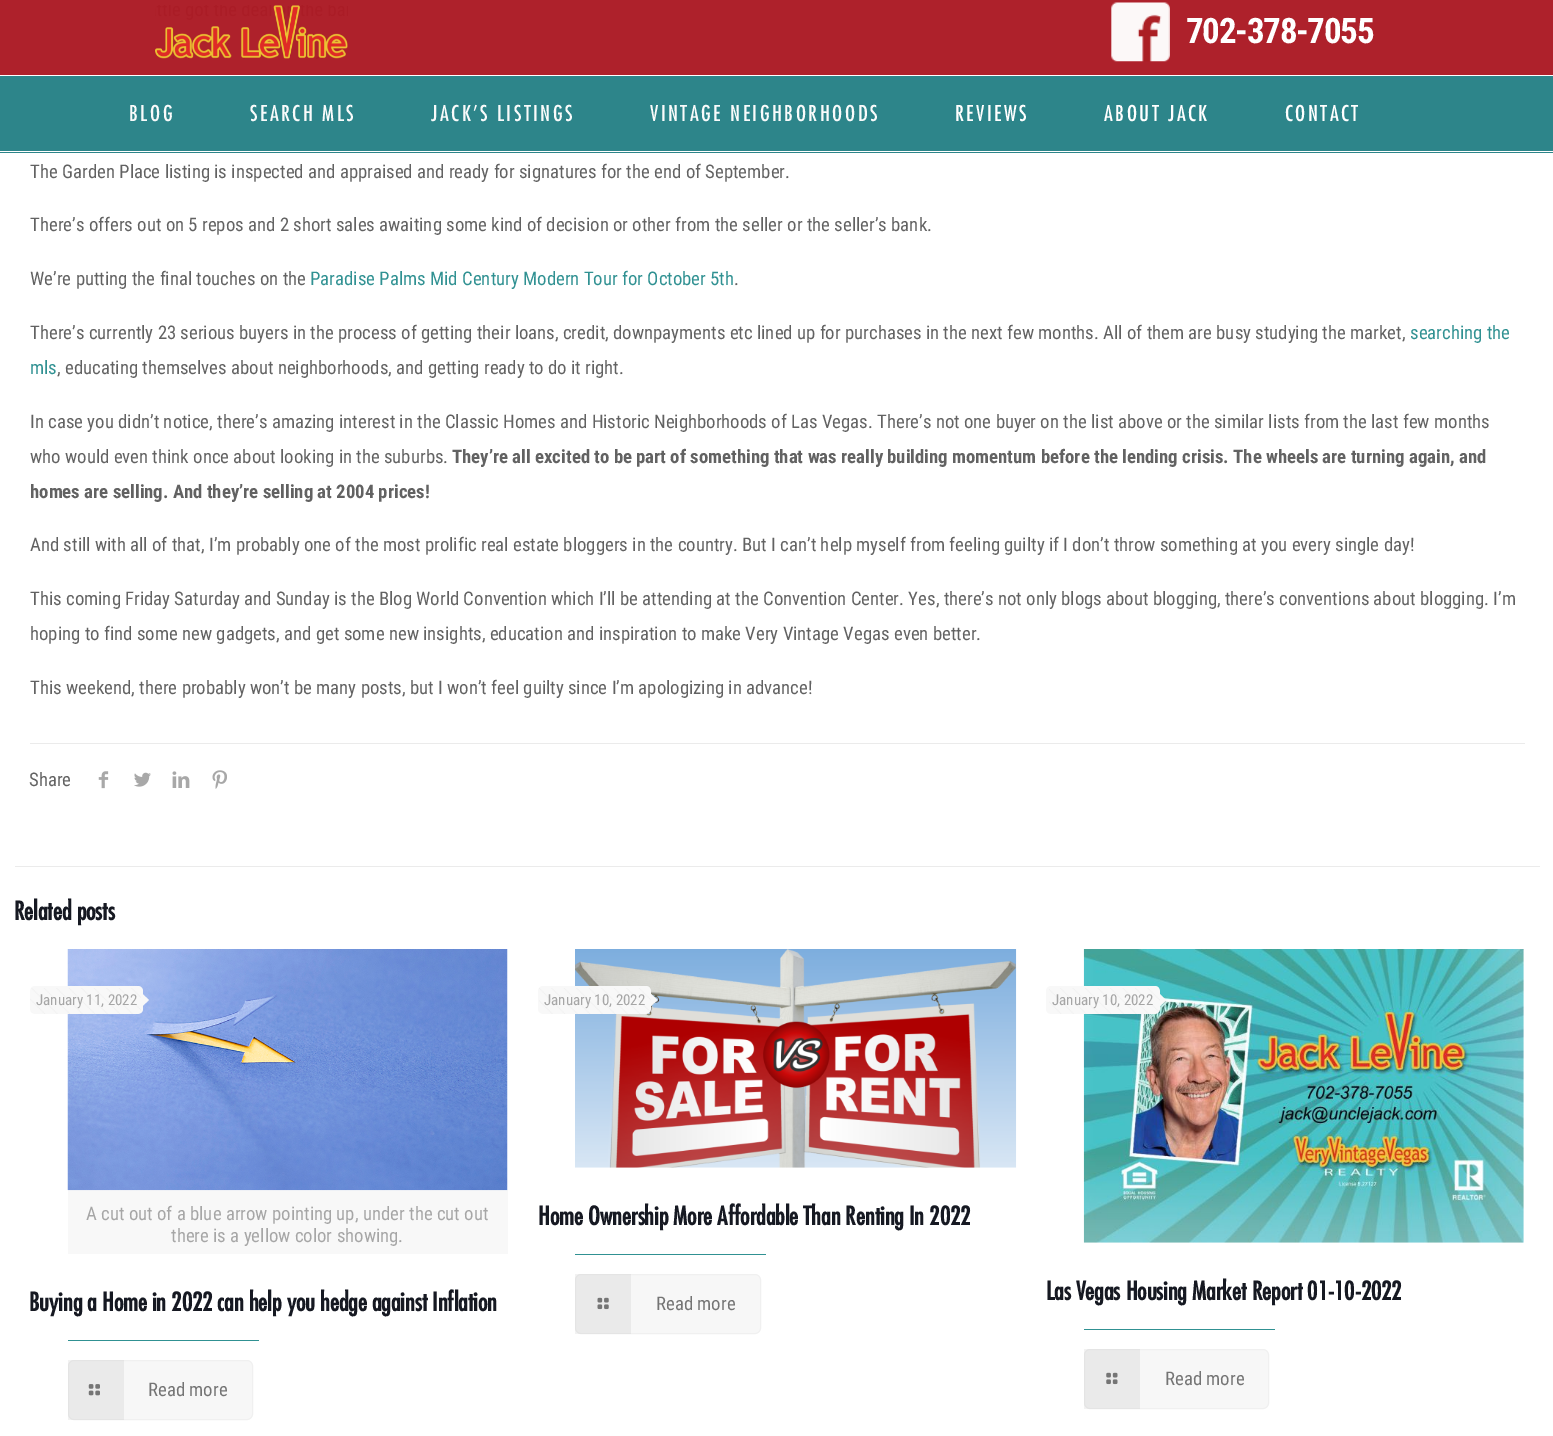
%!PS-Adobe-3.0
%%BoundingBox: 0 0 1553 1436
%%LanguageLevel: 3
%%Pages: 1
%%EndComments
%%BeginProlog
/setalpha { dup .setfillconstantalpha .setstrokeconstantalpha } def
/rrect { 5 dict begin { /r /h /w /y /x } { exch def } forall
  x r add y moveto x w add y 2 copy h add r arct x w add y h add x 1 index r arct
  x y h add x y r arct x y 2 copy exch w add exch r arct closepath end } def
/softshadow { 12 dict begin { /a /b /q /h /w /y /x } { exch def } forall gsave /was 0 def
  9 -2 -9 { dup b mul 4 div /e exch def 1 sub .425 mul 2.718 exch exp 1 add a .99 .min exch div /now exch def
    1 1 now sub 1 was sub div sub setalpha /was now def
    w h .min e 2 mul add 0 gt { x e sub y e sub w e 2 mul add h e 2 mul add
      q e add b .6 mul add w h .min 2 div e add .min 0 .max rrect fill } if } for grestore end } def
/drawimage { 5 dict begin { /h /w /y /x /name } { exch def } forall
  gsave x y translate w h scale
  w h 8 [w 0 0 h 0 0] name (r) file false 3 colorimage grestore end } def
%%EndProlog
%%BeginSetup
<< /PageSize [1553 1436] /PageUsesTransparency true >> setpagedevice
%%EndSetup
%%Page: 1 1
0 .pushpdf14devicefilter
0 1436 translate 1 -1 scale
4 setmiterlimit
1 setgray
0 0 1553 1436 rectfill
0.176 0.522 0.541 setrgbcolor
0 76 1553 77 rectfill
0.682 0.129 0.169 setrgbcolor
0 0 1553 75 rectfill
gsave
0 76 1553 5 rectclip
0.149 0.49 0.51 setrgbcolor
0 3 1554 75 0 3 0.1 softshadow
grestore
(images/1.raw) 155 5 193 54 drawimage
(images/2.raw) 1111 2 59 60 drawimage
1 setgray
0 75 1553 1 rectfill
0 151 1553 1 rectfill
0.922 setgray
30 743 1495 1 rectfill
(images/3.raw) 98 771 11 18 drawimage
(images/4.raw) 134 772 17 15 drawimage
(images/5.raw) 172 771 18 17 drawimage
(images/6.raw) 212 770 15 19 drawimage
15 866 1525 1 rectfill
0.973 setgray
68 1190 440 64 rectfill
(images/8.raw) 67 949 441 242 drawimage
30 986 113 28 5 rrect fill
(images/7.raw) 30 988 111 26 drawimage
newpath 142.5 1006 moveto 142.5 994 lineto 149 1000 lineto closepath fill
0.188 0.569 0.573 setrgbcolor
68 1340 191 1 rectfill
0.969 setgray
68.5 1360.5 184 59 5.5 rrect gsave fill grestore
0.941 setgray
stroke
(images/9.raw) 88 1384 12 12 drawimage
0.05 setalpha
0 setgray
68 1360 56 60 rectfill
1 setalpha
(images/10.raw) 575 949 442 219 drawimage
0.973 setgray
538 986 113 28 5 rrect fill
(images/11.raw) 539 988 112 26 drawimage
newpath 651 1006 moveto 651 994 lineto 657.5 1000 lineto closepath fill
0.188 0.569 0.573 setrgbcolor
575 1254 191 1 rectfill
0.969 setgray
575.5 1274.5 185 59 5.5 rrect gsave fill grestore
0.941 setgray
stroke
(images/12.raw) 597 1297 12 13 drawimage
0.05 setalpha
0 setgray
575 1274 56 60 rectfill
1 setalpha
(images/13.raw) 1083 949 441 294 drawimage
0.973 setgray
1046 986 114 28 5 rrect fill
(images/14.raw) 1049 988 111 26 drawimage
newpath 1160 1006 moveto 1160 994 lineto 1166 1000 lineto closepath fill
0.188 0.569 0.573 setrgbcolor
1084 1329 191 1 rectfill
0.969 setgray
1084.5 1349.5 184 59 5.5 rrect gsave fill grestore
0.941 setgray
stroke
(images/15.raw) 1106 1372 12 13 drawimage
0.05 setalpha
0 setgray
1084 1349 56 60 rectfill
/RobotoCondensed-Bold [35 0 0 -35 0 0] selectfont
1 setalpha
1 setgray
1186 43 moveto -1.25 0 (702-378-7055) ashow
/Futura-Regular [21.25 0 0 -21.25 0 0] selectfont
0.976 0.984 0.984 setrgbcolor
129 121 moveto 2.5 0 (BLOG) ashow
250 121 moveto 2.5 0 (SEARCH MLS) ashow
431 121 moveto 2.5 0 (JACK’S LISTINGS) ashow
650 121 moveto 2.5 0 (VINTAGE NEIGHBORHOODS) ashow
1 setgray
955 121 moveto 2.5 0 (REVIEWS) ashow
1104 121 moveto 2.5 0 (ABOUT JACK) ashow
1285 121 moveto 2.5 0 (CONTACT) ashow
/RobotoCondensed-Regular [18.75 0 0 -18.75 0 0] selectfont
0.384 setgray
30 178 moveto (The Garden Place listing is inspected and appraised and ready for signatures for the end of September.) show
30 231 moveto (There’s offers out on 5 repos and 2 short sales awaiting some kind of decision or other from the seller or the seller’s bank.) show
30 285 moveto (We’re putting the final touches on the) show
0.188 0.569 0.573 setrgbcolor
310 285 moveto (Paradise Palms Mid Century Modern Tour for October 5th) show
0.384 setgray
734 285 moveto (.) show
30 339 moveto (There’s currently 23 serious buyers in the process of getting their loans, credit, downpayments etc lined up for purchases in the next few months. All of them are busy studying the market,) show
0.188 0.569 0.573 setrgbcolor
1410 339 moveto (searching the) show
30 374 moveto (mls) show
0.384 setgray
57 374 moveto (, educating themselves about neighborhoods, and getting ready to do it right.) show
30 428 moveto (In case you didn’t notice, there’s amazing interest in the Classic Homes and Historic Neighborhoods of Las Vegas. There’s not one buyer on the list above or the similar lists from the last few months) show
30 463 moveto (who would even think once about looking in the suburbs.) show
/RobotoCondensed-Bold [18.75 0 0 -18.75 0 0] selectfont
452 463 moveto (They’re all excited to be part of something that was really building momentum before the lending crisis. The wheels are turning again, and) show
30 498 moveto (homes are selling. And they’re selling at 2004 prices!) show
/RobotoCondensed-Regular [18.75 0 0 -18.75 0 0] selectfont
30 551 moveto (And still with all of that, I’m probably one of the most prolific real estate bloggers in the country. But I can’t help myself from feeling guilty if I don’t throw something at you every single day!) show
30 605 moveto (This coming Friday Saturday and Sunday is the Blog World Convention which I’ll be attending at the Convention Center. Yes, there’s not only blogs about blogging, there’s conventions about blogging. I’m) show
30 640 moveto (hoping to find some new gadgets, and get some new insights, education and inspiration to make Very Vintage Vegas even better.) show
30 694 moveto (This weekend, there probably won’t be many posts, but I won’t feel guilty since I’m apologizing in advance!) show
29 786 moveto (Share) show
/Futura-Bold [25 0 0 -25 0 0] selectfont
0.086 0.098 0.133 setrgbcolor
14 920 moveto (Related posts) show
/RobotoCondensed-Regular [15 0 0 -15 0 0] selectfont
0.651 setgray
36 1005 moveto (January 11, 2022) show
/RobotoCondensed-Regular [18.75 0 0 -18.75 0 0] selectfont
86 1220 moveto (A cut out of a blue arrow pointing up, under the cut out) show
171 1242 moveto (there is a yellow color showing.) show
/Futura-Bold [25 0 0 -25 0 0] selectfont
0.086 0.098 0.133 setrgbcolor
29 1311 moveto (Buying a Home in 2022 can help you hedge against Inflation) show
/RobotoCondensed-Regular [18.75 0 0 -18.75 0 0] selectfont
0.455 setgray
148 1396 moveto (Read more) show
/RobotoCondensed-Regular [15 0 0 -15 0 0] selectfont
0.651 setgray
544 1005 moveto (January 10, 2022) show
/Futura-Bold [25 0 0 -25 0 0] selectfont
0.086 0.098 0.133 setrgbcolor
538 1225 moveto (Home Ownership More Affordable Than Renting In 2022) show
/RobotoCondensed-Regular [18.75 0 0 -18.75 0 0] selectfont
0.455 setgray
656 1310 moveto (Read more) show
/RobotoCondensed-Regular [15 0 0 -15 0 0] selectfont
0.651 setgray
1052 1005 moveto (January 10, 2022) show
/Futura-Bold [25 0 0 -25 0 0] selectfont
0.086 0.098 0.133 setrgbcolor
1046 1300 moveto (Las Vegas Housing Market Report 01-10-2022) show
/RobotoCondensed-Regular [18.75 0 0 -18.75 0 0] selectfont
0.455 setgray
1165 1385 moveto (Read more) show
.poppdf14devicefilter showpage
%%EOF
